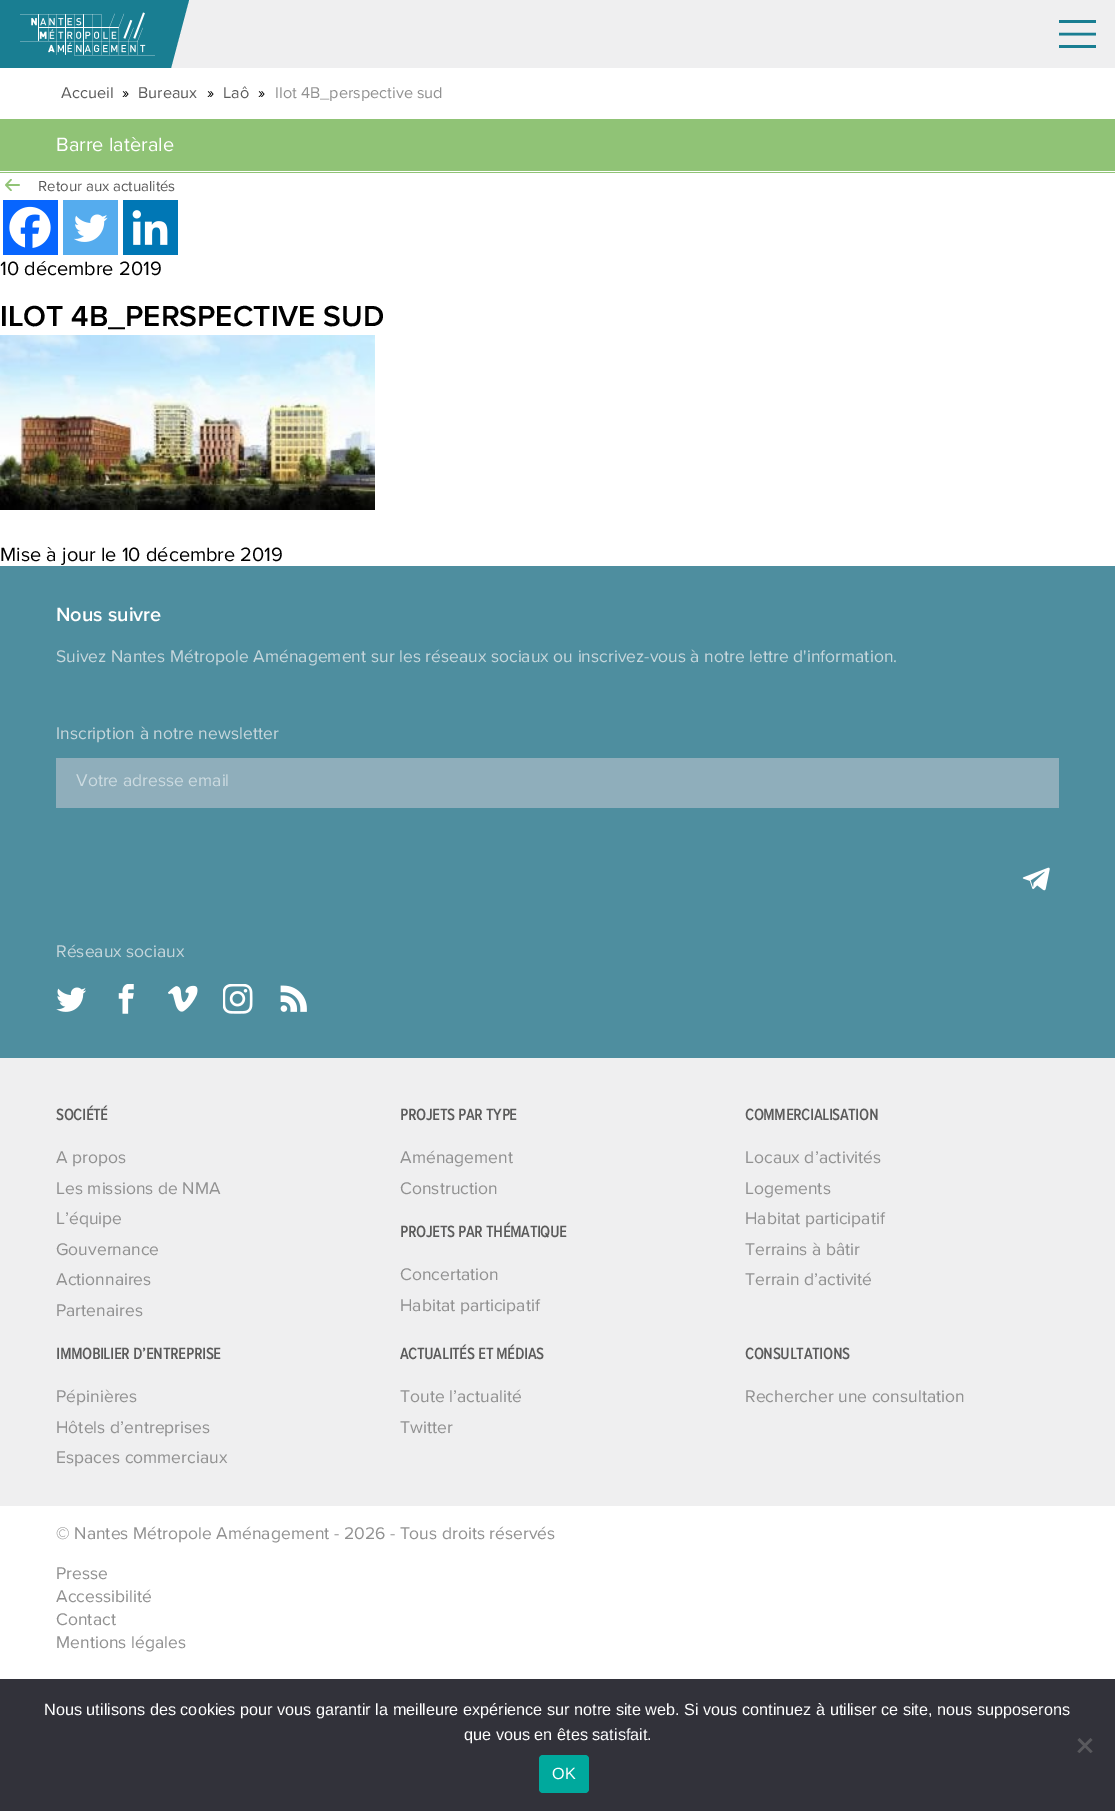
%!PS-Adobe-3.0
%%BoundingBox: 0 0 1115 1811
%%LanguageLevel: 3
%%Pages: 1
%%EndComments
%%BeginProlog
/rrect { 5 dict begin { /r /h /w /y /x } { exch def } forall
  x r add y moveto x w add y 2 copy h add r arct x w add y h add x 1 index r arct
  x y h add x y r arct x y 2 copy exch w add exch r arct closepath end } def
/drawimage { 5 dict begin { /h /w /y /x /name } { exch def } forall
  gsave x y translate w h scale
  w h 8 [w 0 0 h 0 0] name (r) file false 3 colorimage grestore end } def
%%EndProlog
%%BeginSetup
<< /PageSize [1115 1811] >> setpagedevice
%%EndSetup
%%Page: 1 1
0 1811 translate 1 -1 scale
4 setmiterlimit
1 setgray
0 0 1115 1811 rectfill
0.937 0.937 0.941 setrgbcolor
171 0 944 68 rectfill
0.098 0.494 0.573 setrgbcolor
0 0 139 68 rectfill
newpath 139 0 moveto 189 0 lineto 171 68 lineto 121 68 lineto closepath fill
(images/1.raw) 20 12 135 44 drawimage
1059 20 37 3 rectfill
2.5 setlinewidth
newpath 1059 34 moveto 1096 34 lineto stroke
1059 45 37 3 rectfill
0.565 0.765 0.463 setrgbcolor
0 119 1115 54 rectfill
1 setgray
0 171 1115 1 rectfill
(images/2.raw) 5 179 15 12 drawimage
0.027 0.396 0.996 setrgbcolor
3 200 55 55 rectfill
(images/3.raw) 9 206 42 42 drawimage
0.333 0.675 0.933 setrgbcolor
63 200 55 55 rectfill
(images/4.raw) 74 214 34 28 drawimage
0 0.467 0.71 setrgbcolor
123 200 55 55 rectfill
(images/5.raw) 132 210 36 35 drawimage
(images/6.raw) 0 335 375 175 drawimage
0.306 0.557 0.624 setrgbcolor
0 566 1115 492 rectfill
0.561 0.682 0.733 setrgbcolor
56 758 1003 50 rectfill
(images/7.raw) 1022 867 28 24 drawimage
(images/8.raw) 56 987 30 25 drawimage
(images/9.raw) 118 984 16 30 drawimage
(images/10.raw) 168 985 30 27 drawimage
(images/11.raw) 223 984 30 30 drawimage
(images/12.raw) 280 985 27 27 drawimage
0.937 0.937 0.941 setrgbcolor
0 1058 1115 448 rectfill
0.196 0.196 0.227 setrgbcolor
0 1679 1115 132 rectfill
0.349 0.349 0.365 setrgbcolor
newpath 1090.5 1738 moveto 1092.5 1740 lineto 1079.5 1753 lineto 1077.5 1751.5 lineto closepath fill
newpath 1077.5 1740 moveto 1079.5 1738 lineto 1092.5 1751.5 lineto 1090.5 1753 lineto closepath fill
0 0.663 0.616 setrgbcolor
539 1755 50 38 4 rrect fill
/ProximaNova-Regular [16.25 0 0 -16.25 0 0] selectfont
0.357 setgray
61 98 moveto (Accueil) show
0 setgray
122 98 moveto (») show
0.357 setgray
138 98 moveto (Bureaux) show
0 setgray
207 98 moveto (») show
0.357 setgray
223 98 moveto (Laô) show
0 setgray
258 98 moveto (») show
0.569 setgray
275 98 moveto (Ilot 4B_perspective sud) show
/ProximaNova-Regular [20 0 0 -20 0 0] selectfont
1 setgray
56 151 moveto (Barre latèrale) show
/ProximaNova-Regular [15 0 0 -15 0 0] selectfont
0.357 setgray
38 191 moveto (Retour aux actualités) show
/ProximaNova-Regular [20 0 0 -20 0 0] selectfont
0 setgray
0 275 moveto (10 décembre 2019) show
/ProximaNova-SemiBold [30 0 0 -30 0 0] selectfont
0 326 moveto (ILOT 4B_PERSPECTIVE SUD) show
/ProximaNova-Regular [20 0 0 -20 0 0] selectfont
0 561 moveto (Mise à jour le 10 décembre 2019) show
/ProximaNova-SemiBold [20 0 0 -20 0 0] selectfont
1 setgray
56 621 moveto (Nous suivre) show
/ProximaNova-Regular [17.5 0 0 -17.5 0 0] selectfont
0.773 0.839 0.863 setrgbcolor
56 662 moveto (Suivez Nantes Métropole Aménagement sur les réseaux sociaux ou inscrivez-vous à notre lettre d'information.) show
56 739 moveto (Inscription à notre newsletter) show
0.796 0.855 0.878 setrgbcolor
76 786 moveto (Votre adresse email) show
0.773 0.839 0.863 setrgbcolor
56 957 moveto (Réseaux sociaux) show
/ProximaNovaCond-Bold [16.25 0 0 -16.25 0 0] selectfont
0.357 setgray
56 1120 moveto (SOCIÉTÉ) show
/ProximaNova-Regular [17.5 0 0 -17.5 0 0] selectfont
0.569 setgray
56 1163 moveto (A propos) show
56 1194 moveto (Les missions de NMA) show
56 1224 moveto (L’équipe) show
56 1255 moveto (Gouvernance) show
56 1285 moveto (Actionnaires) show
56 1316 moveto (Partenaires) show
/ProximaNovaCond-Bold [16.25 0 0 -16.25 0 0] selectfont
0.357 setgray
400 1120 moveto (PROJETS PAR TYPE) show
/ProximaNova-Regular [17.5 0 0 -17.5 0 0] selectfont
0.569 setgray
400 1163 moveto (Aménagement) show
400 1194 moveto (Construction) show
/ProximaNovaCond-Bold [16.25 0 0 -16.25 0 0] selectfont
0.357 setgray
400 1237 moveto (PROJETS PAR THÉMATIQUE) show
/ProximaNova-Regular [17.5 0 0 -17.5 0 0] selectfont
0.569 setgray
400 1280 moveto (Concertation) show
400 1311 moveto (Habitat participatif) show
/ProximaNovaCond-Bold [16.25 0 0 -16.25 0 0] selectfont
0.357 setgray
745 1120 moveto (COMMERCIALISATION) show
/ProximaNova-Regular [17.5 0 0 -17.5 0 0] selectfont
0.569 setgray
745 1163 moveto (Locaux d’activités) show
745 1194 moveto (Logements) show
745 1224 moveto (Habitat participatif) show
745 1255 moveto (Terrains à bâtir) show
745 1285 moveto (Terrain d’activité) show
/ProximaNovaCond-Bold [16.25 0 0 -16.25 0 0] selectfont
0.357 setgray
56 1359 moveto (IMMOBILIER D’ENTREPRISE) show
/ProximaNova-Regular [17.5 0 0 -17.5 0 0] selectfont
0.569 setgray
56 1402 moveto (Pépinières) show
56 1433 moveto (Hôtels d’entreprises) show
56 1463 moveto (Espaces commerciaux) show
/ProximaNovaCond-Bold [16.25 0 0 -16.25 0 0] selectfont
0.357 setgray
400 1359 moveto (ACTUALITÉS ET MÉDIAS) show
/ProximaNova-Regular [17.5 0 0 -17.5 0 0] selectfont
0.569 setgray
400 1402 moveto (Toute l’actualité) show
400 1433 moveto (Twitter) show
/ProximaNovaCond-Bold [16.25 0 0 -16.25 0 0] selectfont
0.357 setgray
745 1359 moveto (CONSULTATIONS) show
/ProximaNova-Regular [17.5 0 0 -17.5 0 0] selectfont
0.569 setgray
745 1402 moveto (Rechercher une consultation) show
56 1539 moveto (© Nantes Métropole Aménagement - 2026 - Tous droits réservés) show
56 1579 moveto (Presse) show
56 1602 moveto (Accessibilité) show
56 1625 moveto (Contact) show
56 1648 moveto (Mentions légales) show
/LiberationSans-Regular [16.25 0 0 -16.25 0 0] selectfont
1 setgray
44 1715 moveto (Nous utilisons des cookies pour vous garantir la meilleure expérience sur notre site web. Si vous continuez à utiliser ce site, nous supposerons) show
464 1740 moveto (que vous en êtes satisfait.) show
552 1779 moveto (OK) show
showpage
%%EOF
